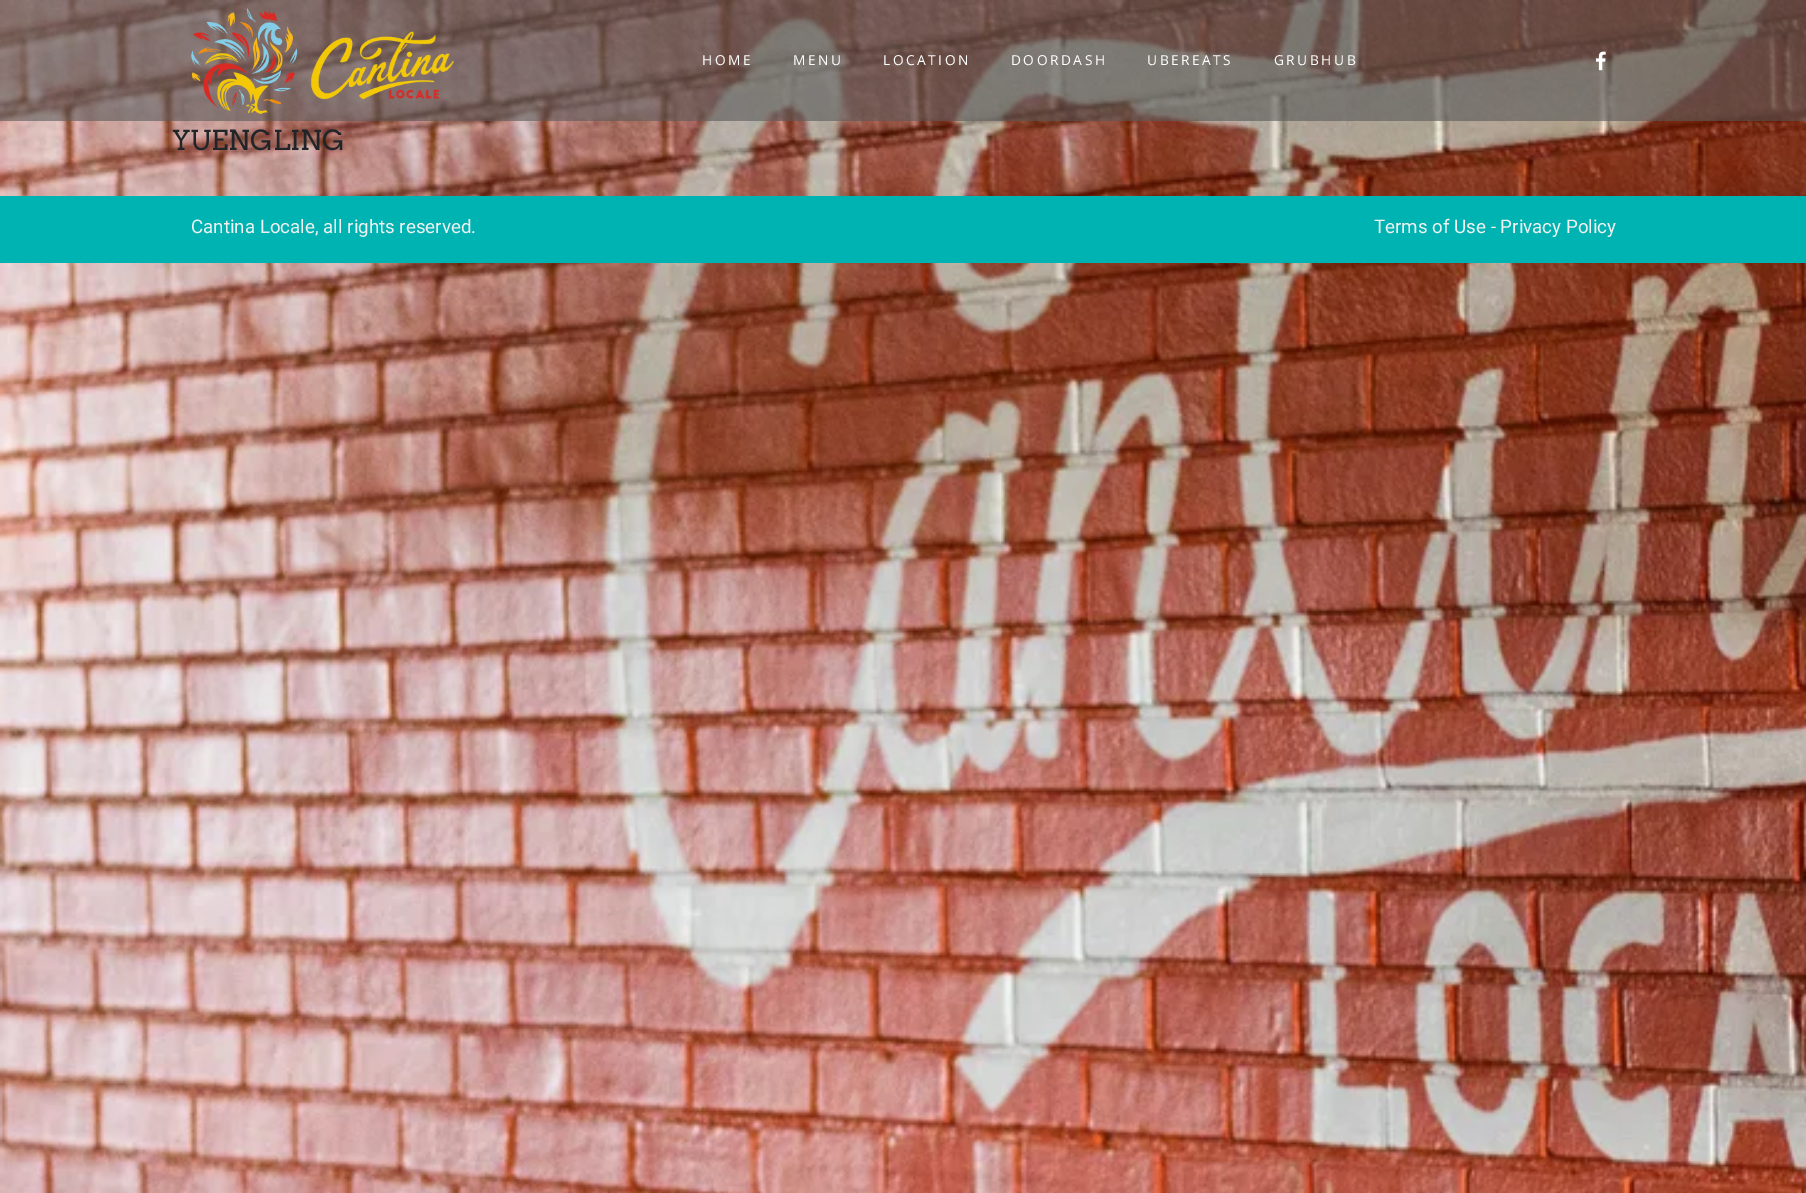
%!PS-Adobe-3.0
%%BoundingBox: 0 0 1806 1193
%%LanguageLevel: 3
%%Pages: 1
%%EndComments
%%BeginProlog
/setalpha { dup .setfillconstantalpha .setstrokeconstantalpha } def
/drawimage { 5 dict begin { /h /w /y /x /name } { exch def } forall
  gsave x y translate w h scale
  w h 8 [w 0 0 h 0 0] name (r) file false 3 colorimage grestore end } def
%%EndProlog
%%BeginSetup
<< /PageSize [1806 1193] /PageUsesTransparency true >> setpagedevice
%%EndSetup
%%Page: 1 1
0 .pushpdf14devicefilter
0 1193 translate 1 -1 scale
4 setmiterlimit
1 setgray
0 0 1806 1193 rectfill
(images/1.raw) 0 0 1806 1193 drawimage
0.6 setalpha
0.349 setgray
0 0 1806 121 rectfill
1 setalpha
(images/2.raw) 191 8 263 106 drawimage
(images/3.raw) 1596 51 10 20 drawimage
0 0.702 0.702 setrgbcolor
0 196 1806 67 rectfill
/OpenSans-Regular [13.75 0 0 -13.75 0 0] selectfont
1 setgray
702 65 moveto 2.5 0 (HOME) ashow
793 65 moveto 2.5 0 (MENU) ashow
883 65 moveto 2.5 0 (LOCATION) ashow
1011 65 moveto 2.5 0 (DOORDASH) ashow
1147 65 moveto 2.5 0 (UBEREATS) ashow
1274 65 moveto 2.5 0 (GRUBHUB) ashow
/Arvo-Regular [27.5 0 0 -27.5 0 0] selectfont
0.129 0.145 0.161 setrgbcolor
172 150 moveto (YUENGLING) show
/Roboto-Regular [18.75 0 0 -18.75 0 0] selectfont
0.945 setgray
191 233 moveto (Cantina Locale, all rights reserved.) show
1374 233 moveto (Terms of Use - Privacy Policy) show
.poppdf14devicefilter showpage
%%EOF
